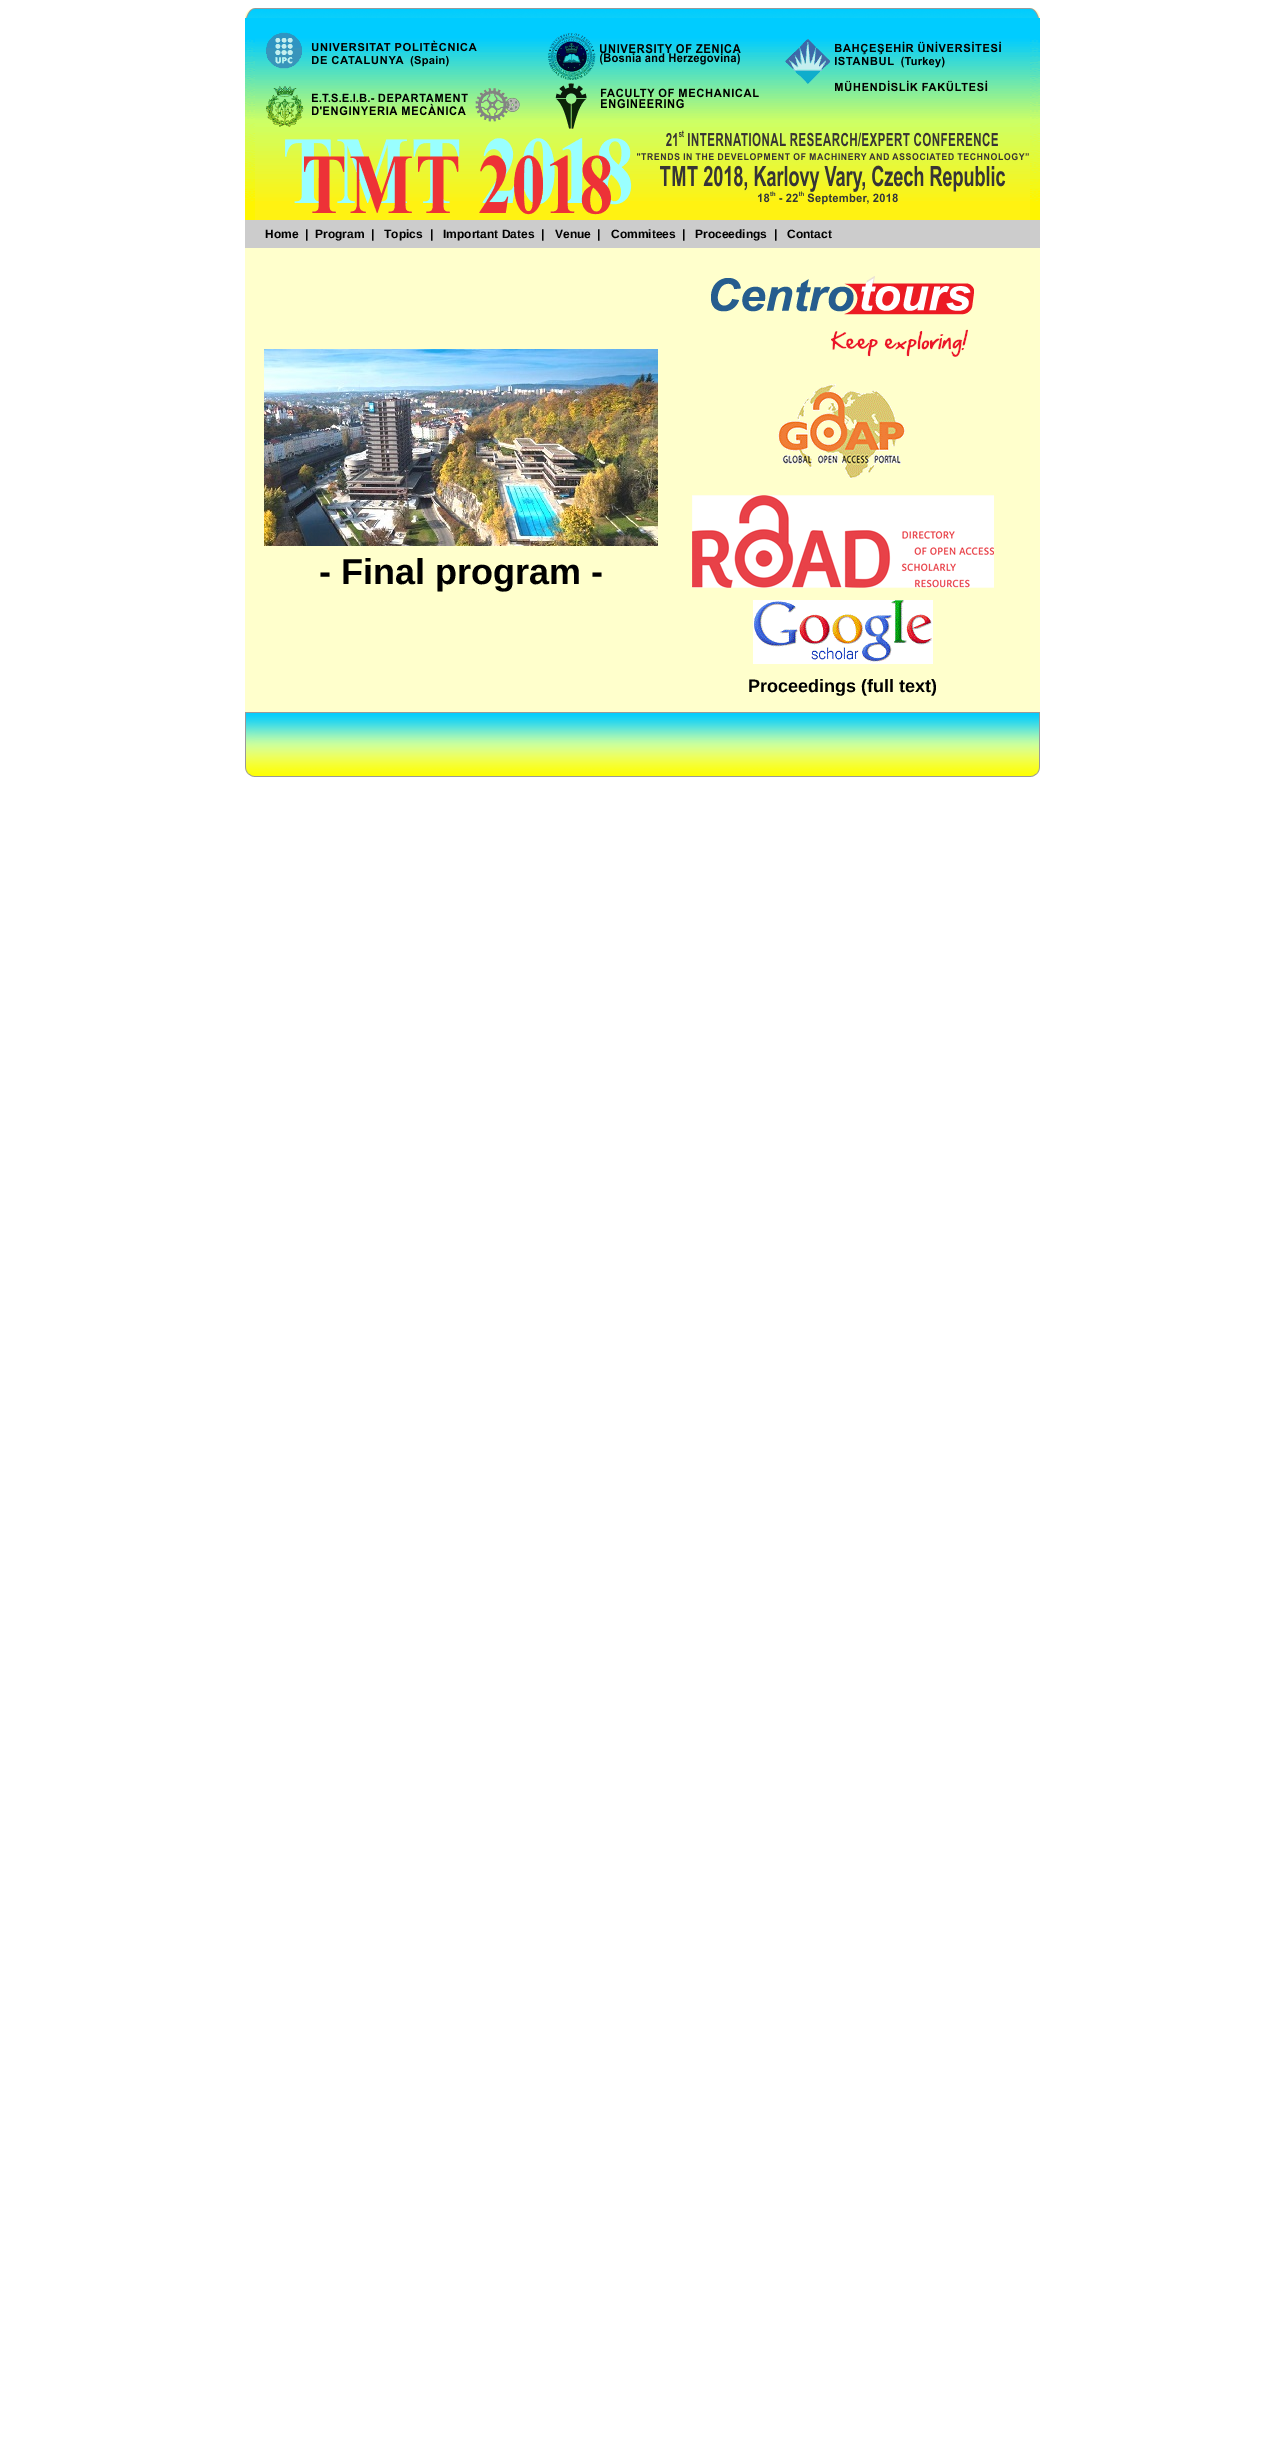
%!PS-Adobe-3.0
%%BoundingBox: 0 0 1285 2443
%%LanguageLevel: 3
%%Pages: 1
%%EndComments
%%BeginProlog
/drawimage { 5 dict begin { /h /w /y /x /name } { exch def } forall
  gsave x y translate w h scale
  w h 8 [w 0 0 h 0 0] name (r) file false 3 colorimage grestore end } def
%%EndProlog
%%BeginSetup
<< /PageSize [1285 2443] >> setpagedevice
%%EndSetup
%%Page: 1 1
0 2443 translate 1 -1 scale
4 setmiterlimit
1 setgray
0 0 1285 2443 rectfill
(images/1.raw) 245 8 10 10 drawimage
(images/2.raw) 255 8 775 10 drawimage
(images/3.raw) 1030 8 10 10 drawimage
(images/4.raw) 245 18 10 202 drawimage
(images/5.raw) 255 18 775 202 drawimage
(images/4.raw) 1030 18 10 202 drawimage
0.8 setgray
245 220 795 28 rectfill
1 1 0.8 setrgbcolor
245 248 795 464 rectfill
(images/6.raw) 264 349 394 197 drawimage
(images/7.raw) 711 276 263 81 drawimage
(images/8.raw) 778 384 127 95 drawimage
(images/9.raw) 692 495 302 93 drawimage
(images/10.raw) 753 600 180 64 drawimage
(images/11.raw) 245 712 10 55 drawimage
(images/12.raw) 255 712 775 55 drawimage
(images/13.raw) 1030 712 10 55 drawimage
(images/14.raw) 245 767 10 10 drawimage
(images/15.raw) 255 767 775 10 drawimage
(images/16.raw) 1030 767 10 10 drawimage
/LiberationSans-Bold [12 0 0 -12 0 0] selectfont
0 setgray
265 238 moveto (Home) show
305 238 moveto (|) show
315 238 moveto (Program) show
371 238 moveto (|) show
384 238 moveto (Topics) show
430 238 moveto (|) show
443 238 moveto (Important Dates) show
541 238 moveto (|) show
555 238 moveto (Venue) show
597 238 moveto (|) show
611 238 moveto (Commitees) show
682 238 moveto (|) show
695 238 moveto (Proceedings) show
774 238 moveto (|) show
787 238 moveto (Contact) show
/LiberationSans-Bold [36 0 0 -36 0 0] selectfont
319 584 moveto (- Final program -) show
/LiberationSans-Bold [18 0 0 -18 0 0] selectfont
748 692 moveto (Proceedings \(full text\)) show
showpage
%%EOF
